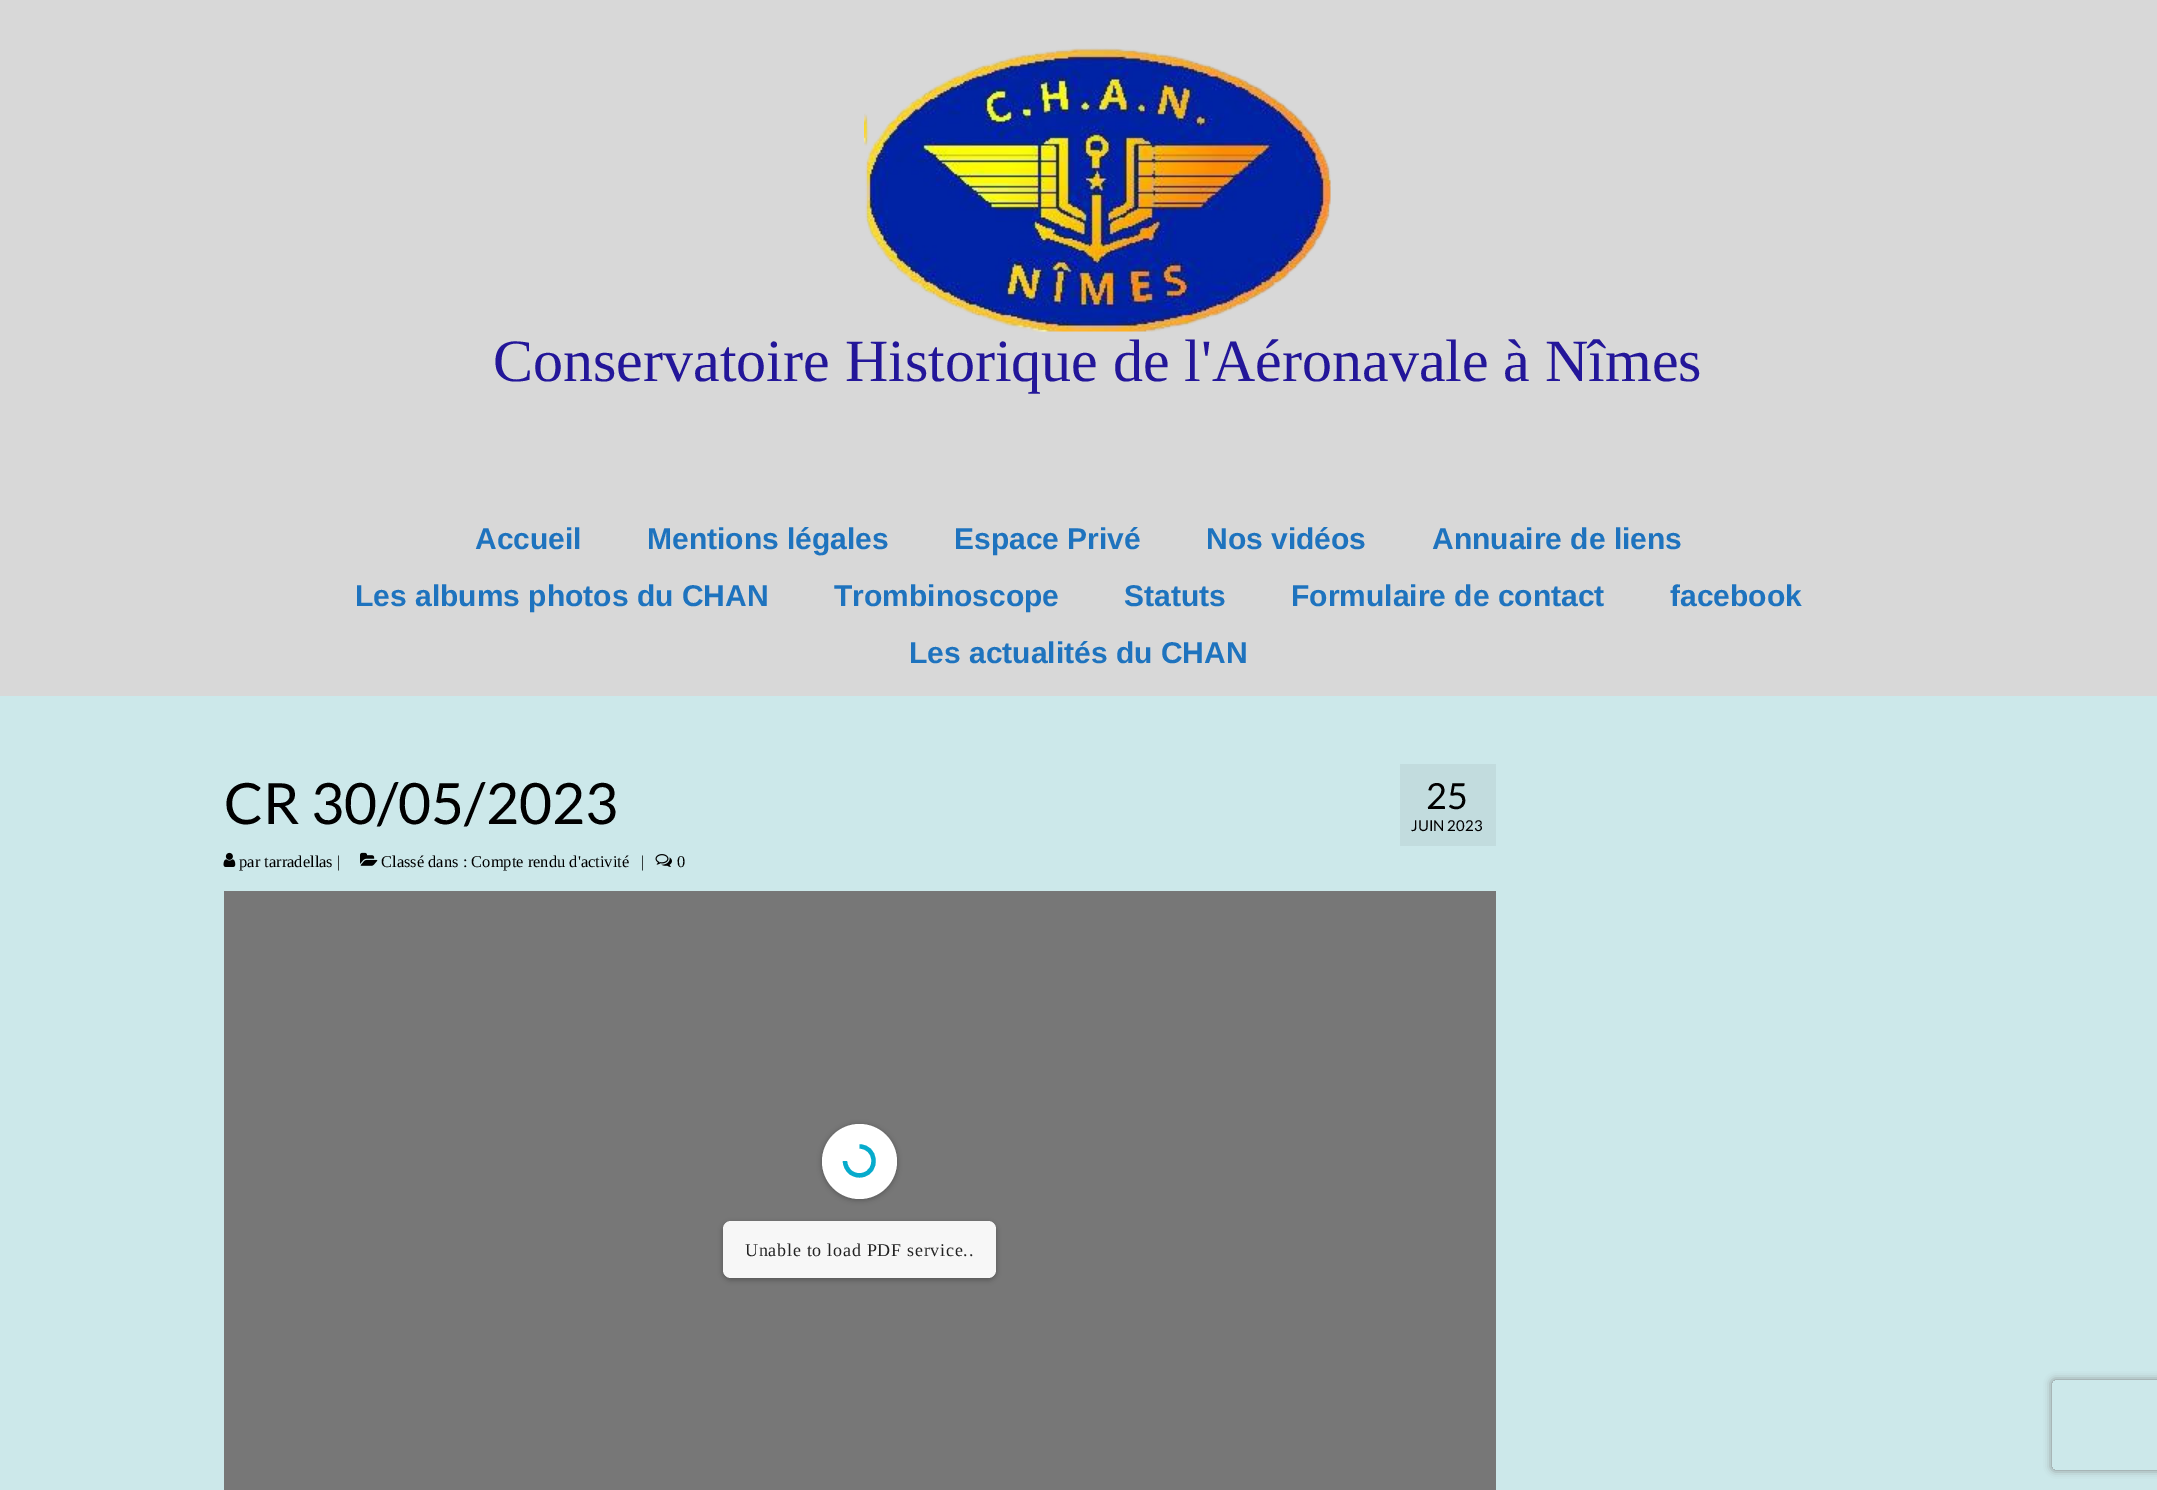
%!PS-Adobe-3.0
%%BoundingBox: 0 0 2157 1490
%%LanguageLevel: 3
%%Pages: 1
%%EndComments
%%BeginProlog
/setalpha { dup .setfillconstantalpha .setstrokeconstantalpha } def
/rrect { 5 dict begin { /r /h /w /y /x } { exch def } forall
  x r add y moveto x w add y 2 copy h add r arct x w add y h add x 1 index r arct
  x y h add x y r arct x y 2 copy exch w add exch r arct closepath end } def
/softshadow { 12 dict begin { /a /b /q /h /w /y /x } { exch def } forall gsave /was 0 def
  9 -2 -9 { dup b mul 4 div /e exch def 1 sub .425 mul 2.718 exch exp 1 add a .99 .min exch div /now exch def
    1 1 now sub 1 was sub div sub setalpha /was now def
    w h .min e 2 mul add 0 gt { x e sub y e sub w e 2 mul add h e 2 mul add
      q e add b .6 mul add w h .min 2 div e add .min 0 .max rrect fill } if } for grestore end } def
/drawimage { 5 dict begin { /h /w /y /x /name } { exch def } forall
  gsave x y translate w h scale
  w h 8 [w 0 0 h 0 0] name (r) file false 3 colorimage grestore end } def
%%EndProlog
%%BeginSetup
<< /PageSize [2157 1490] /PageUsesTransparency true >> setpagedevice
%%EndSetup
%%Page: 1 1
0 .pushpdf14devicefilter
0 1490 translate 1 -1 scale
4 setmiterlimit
0.847 setgray
0 0 2157 1490 rectfill
(images/1.raw) 864 48 467 284 drawimage
0.8 0.91 0.918 setrgbcolor
0 696 2157 794 rectfill
(images/2.raw) 223 852 13 15 drawimage
(images/3.raw) 360 852 18 14 drawimage
(images/4.raw) 655 854 17 13 drawimage
0.761 0.863 0.871 setrgbcolor
1400 764 96 82 rectfill
0.467 setgray
224 891 1272 599 rectfill
0 setgray
822 1125 75 75 37.5 3 0.3 softshadow
1 setgray
newpath 859.5 1161.5 37.5 0 360 arc closepath fill
0.027 0.671 0.8 setrgbcolor
4.3 setlinewidth
newpath 859.5 1146.5 moveto 876.5 1146.5 879 1171.5 862.5 1175 curveto 858.5 1176 854.5 1175 851.5 1173 curveto 847.5 1170.5 845 1165.5 845 1161 curveto stroke
0 setgray
723 1223 273 57 8 3 0.3 softshadow
0.969 setgray
723 1221 273 57 8 rrect fill
gsave
newpath 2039 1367 moveto 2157 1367 lineto 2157 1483 lineto 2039 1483 lineto closepath 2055 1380 moveto 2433 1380 lineto 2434.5 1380 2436 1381.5 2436 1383 curveto 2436 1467 lineto 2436 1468.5 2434.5 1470 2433 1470 curveto 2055 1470 lineto 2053.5 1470 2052 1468.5 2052 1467 curveto 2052 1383 lineto 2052 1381.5 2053.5 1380 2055 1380 curveto closepath eoclip newpath
0.502 setgray
2052 1380 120 90 3 4 1 softshadow
grestore
/LiberationSerif-Regular [60 0 0 -60 0 0] selectfont
0.137 0.086 0.6 setrgbcolor
493 381 moveto (Conservatoire Historique de l'Aéronavale à Nîmes) show
/LiberationSans-Bold [30 0 0 -30 0 0] selectfont
0.118 0.451 0.745 setrgbcolor
475 549 moveto (Accueil) show
647 549 moveto (Mentions légales) show
954 549 moveto (Espace Privé) show
1206 549 moveto (Nos vidéos) show
1432 549 moveto (Annuaire de liens) show
355 606 moveto (Les albums photos du CHAN) show
834 606 moveto (Trombinoscope) show
1124 606 moveto (Statuts) show
1291 606 moveto (Formulaire de contact) show
1670 606 moveto (facebook) show
909 663 moveto (Les actualités du CHAN) show
/Lato-Regular [57 0 0 -57 0 0] selectfont
0 setgray
224 824 moveto (CR 30/05/2023) show
/LiberationSerif-Regular [16.5 0 0 -16.5 0 0] selectfont
239 867 moveto (par tarradellas |) show
381 867 moveto (Classé dans : Compte rendu d'activité) show
641 867 moveto (|) show
677 867 moveto (0) show
/Lato-Regular [36 0 0 -36 0 0] selectfont
1426 809 moveto (25) show
/Lato-Regular [15 0 0 -15 0 0] selectfont
1411 831 moveto (JUIN 2023) show
/LiberationSerif-Regular [18 0 0 -18 0 0] selectfont
0.133 setgray
745 1256 moveto 0.75 0 (Unable to load PDF service..) ashow
.poppdf14devicefilter showpage
%%EOF
